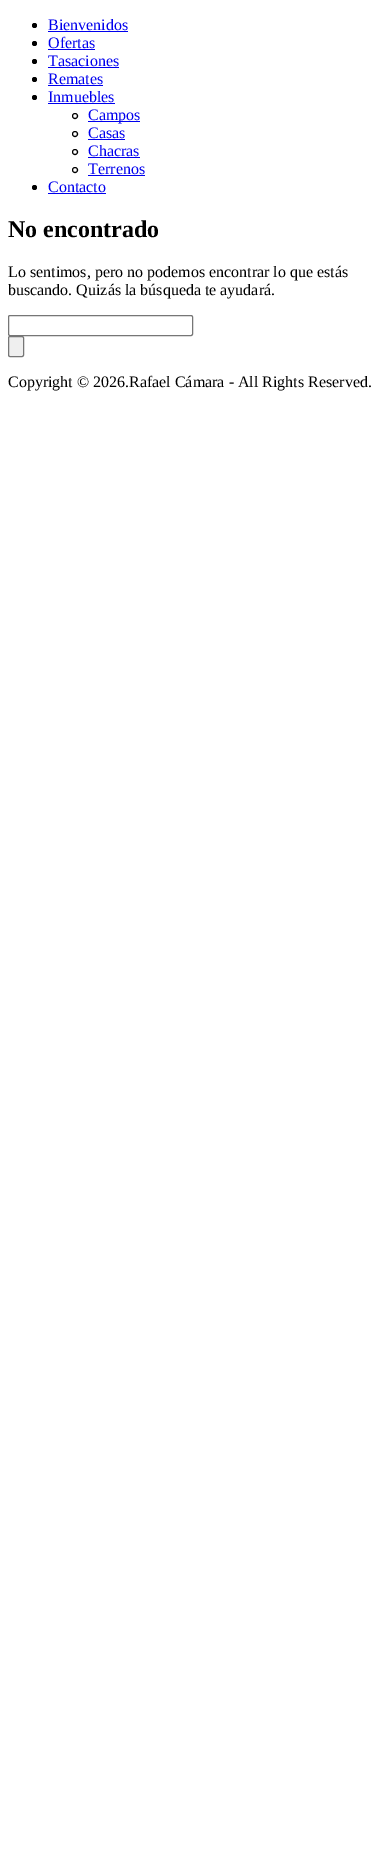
%!PS-Adobe-3.0
%%BoundingBox: 0 0 383 1862
%%LanguageLevel: 3
%%Pages: 1
%%EndComments
%%BeginProlog
/rrect { 5 dict begin { /r /h /w /y /x } { exch def } forall
  x r add y moveto x w add y 2 copy h add r arct x w add y h add x 1 index r arct
  x y h add x y r arct x y 2 copy exch w add exch r arct closepath end } def
%%EndProlog
%%BeginSetup
<< /PageSize [383 1862] >> setpagedevice
%%EndSetup
%%Page: 1 1
0 1862 translate 1 -1 scale
4 setmiterlimit
1 setgray
0 0 383 1862 rectfill
0 setgray
newpath 34.5 25.5 2.5 0 360 arc closepath fill
0 0 0.933 setrgbcolor
48 31 80 1 rectfill
0 setgray
newpath 34.5 43.5 2.5 0 360 arc closepath fill
0 0 0.933 setrgbcolor
48 49 47 1 rectfill
0 setgray
newpath 34.5 61.5 2.5 0 360 arc closepath fill
0 0 0.933 setrgbcolor
48 67 71 1 rectfill
0 setgray
newpath 34.5 79.5 2.5 0 360 arc closepath fill
0 0 0.933 setrgbcolor
48 85 55 1 rectfill
0 setgray
newpath 34.5 97.5 2.5 0 360 arc closepath fill
0 0 0.933 setrgbcolor
48 103 67 1 rectfill
0 setgray
newpath 75 116 2.5 0 360 arc closepath stroke
0 0 0.933 setrgbcolor
88 121 52 1 rectfill
0 setgray
newpath 75 134 2.5 0 360 arc closepath stroke
0 0 0.933 setrgbcolor
88 139 37 1 rectfill
0 setgray
newpath 75 152 2.5 0 360 arc closepath stroke
0 0 0.933 setrgbcolor
88 157 52 1 rectfill
0 setgray
newpath 75 170 2.5 0 360 arc closepath stroke
0 0 0.933 setrgbcolor
88 175 57 1 rectfill
0 setgray
newpath 34.5 187.5 2.5 0 360 arc closepath fill
0 0 0.933 setrgbcolor
48 193 58 1 rectfill
0.463 setgray
8.5 315.5 184 20 1.5 rrect stroke
0.937 setgray
8.5 336.5 15 20 1.5 rrect gsave fill grestore
0.463 setgray
stroke
/LiberationSerif-Regular [16 0 0 -16 0 0] selectfont
0 0 0.933 setrgbcolor
48 30 moveto (Bienvenidos) show
48 48 moveto (Ofertas) show
48 66 moveto (Tasaciones) show
48 84 moveto (Remates) show
48 102 moveto (Inmuebles) show
88 120 moveto (Campos) show
88 138 moveto (Casas) show
88 156 moveto (Chacras) show
88 174 moveto (Terrenos) show
48 192 moveto (Contacto) show
/LiberationSerif-Bold [24 0 0 -24 0 0] selectfont
0 setgray
8 237 moveto (No encontrado) show
/LiberationSerif-Regular [16 0 0 -16 0 0] selectfont
8 277 moveto (Lo sentimos, pero no podemos encontrar lo que estás) show
8 295 moveto (buscando. Quizás la búsqueda te ayudará.) show
8 387 moveto (Copyright © 2026.Rafael Cámara - All Rights Reserved.) show
showpage
%%EOF
